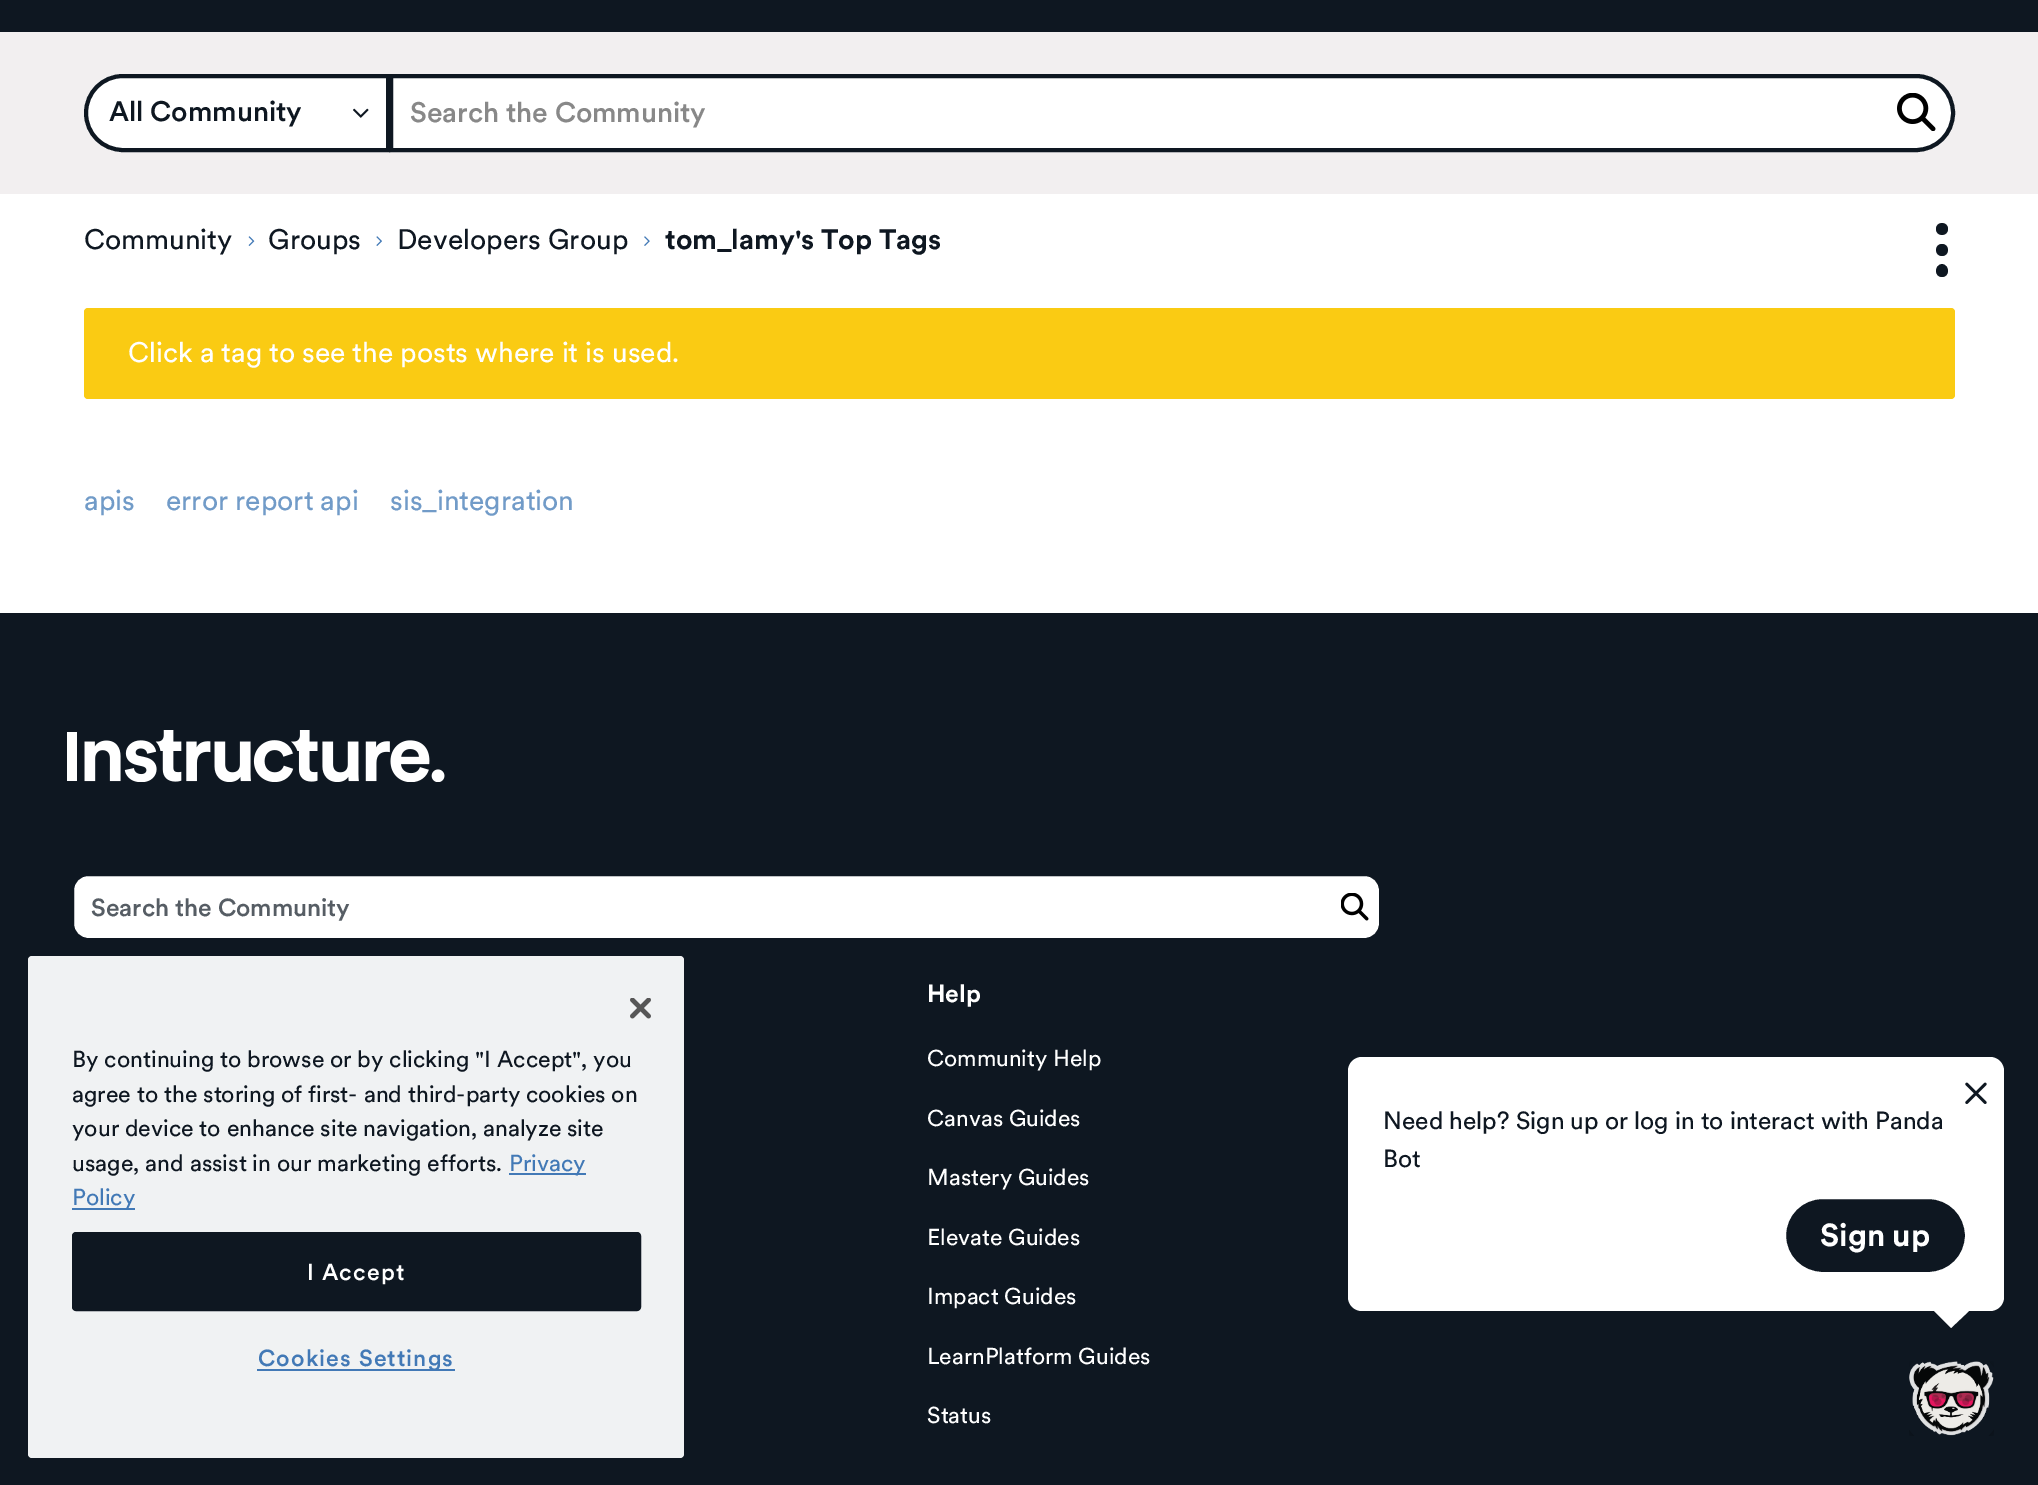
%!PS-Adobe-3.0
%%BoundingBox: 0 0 2038 1485
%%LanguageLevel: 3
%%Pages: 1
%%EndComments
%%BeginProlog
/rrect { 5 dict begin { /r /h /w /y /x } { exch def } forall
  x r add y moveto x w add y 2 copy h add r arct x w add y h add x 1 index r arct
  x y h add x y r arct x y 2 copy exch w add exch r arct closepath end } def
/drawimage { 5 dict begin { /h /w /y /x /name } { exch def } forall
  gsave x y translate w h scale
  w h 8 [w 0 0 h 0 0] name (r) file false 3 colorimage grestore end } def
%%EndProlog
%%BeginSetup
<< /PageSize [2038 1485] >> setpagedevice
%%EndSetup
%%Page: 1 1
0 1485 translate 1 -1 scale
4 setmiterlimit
1 setgray
0 0 2038 1485 rectfill
0.055 0.09 0.129 setrgbcolor
0 0 2038 32 rectfill
0.949 0.937 0.941 setrgbcolor
0 32 2038 162 rectfill
1 setgray
newpath 123 74 moveto 390 74 lineto 390 152 lineto 123 152 lineto 101.5 152 84 134.5 84 113 curveto 84 91.5 101.5 74 123 74 curveto closepath fill
(images/1.raw) 353 108 16 10 drawimage
newpath 391 76 moveto 1916 76 lineto 1936.5 76 1953 92.5 1953 113 curveto 1953 133.5 1936.5 150 1916 150 curveto 391 150 lineto closepath gsave fill grestore
0.055 0.09 0.129 setrgbcolor
4 setlinewidth
stroke
newpath 123 76 moveto 388 76 lineto 388 150 lineto 123 150 lineto 102.5 150 86 133.5 86 113 curveto 86 92.5 102.5 76 123 76 curveto closepath stroke
(images/2.raw) 1897 93 39 38 drawimage
(images/3.raw) 248 236 7 10 drawimage
(images/4.raw) 376 236 6 10 drawimage
(images/5.raw) 644 236 6 10 drawimage
newpath 1942 264 moveto 1934 265 1934 277 1942 277 curveto 1950 277 1950 265 1942 264 curveto closepath 1942 244 moveto 1934 244 1934 256 1942 256 curveto 1950 256 1950 244 1942 244 curveto closepath 1948 229 moveto 1948 221 1936 221 1936 229 curveto 1936 237 1948 237 1948 229 curveto closepath fill
0.98 0.796 0.075 setrgbcolor
84 308 1871 91 4 rrect fill
0.055 0.09 0.129 setrgbcolor
0 613 2038 872 rectfill
1 setgray
1348 1057 656 254 14 rrect fill
(images/6.raw) 1965 1082 22 22 drawimage
0.055 0.09 0.129 setrgbcolor
1784 1197 183 77 38.5 rrect gsave fill grestore
1 setgray
stroke
newpath 1934 1311 moveto 1969 1311 lineto 1951 1328 lineto closepath fill
(images/7.raw) 1909 1361 85 75 drawimage
(images/8.raw) 67 730 378 52 drawimage
72 874 1309 66 16 rrect gsave fill grestore
0.055 0.09 0.129 setrgbcolor
stroke
(images/9.raw) 1341 893 28 28 drawimage
0.941 0.949 0.953 setrgbcolor
28 956 656 502 4 rrect fill
(images/10.raw) 630 998 21 21 drawimage
0.259 0.475 0.714 setrgbcolor
509 1173 77 2 rectfill
72 1208 63 2 rectfill
0.055 0.09 0.129 setrgbcolor
73 1233 567 77 3 rrect gsave fill grestore
2 setlinewidth
stroke
0.259 0.475 0.714 setrgbcolor
257 1369 198 2 rectfill
/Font-Medium [28 0 0 -28 0 0] selectfont
0.055 0.09 0.129 setrgbcolor
109 121 moveto (All Community) show
0.533 setgray
410 122 moveto (Search the Community) show
/Font-Regular [28 0 0 -28 0 0] selectfont
0.055 0.09 0.129 setrgbcolor
84 249 moveto (Community) show
268 249 moveto (Groups) show
397 249 moveto (Developers Group) show
/Font-Bold [28 0 0 -28 0 0] selectfont
665 249 moveto (tom_lamy's Top Tags) show
/Font-Regular [28 0 0 -28 0 0] selectfont
1 setgray
128 362 moveto (Click a tag to see the posts where it is used.) show
0.443 0.608 0.784 setrgbcolor
84 510 moveto (apis) show
166 510 moveto (error report api) show
390 510 moveto (sis_integration) show
/Font-Regular [24.5 0 0 -24.5 0 0] selectfont
0.055 0.09 0.129 setrgbcolor
1383 1129 moveto (Need help? Sign up or log in to interact with Panda) show
1383 1167 moveto (Bot) show
/Font-Bold [31.5 0 0 -31.5 0 0] selectfont
1 setgray
1820 1246 moveto (Sign up) show
/Font-Medium [24.5 0 0 -24.5 0 0] selectfont
0.337 0.365 0.392 setrgbcolor
91 916 moveto (Search the Community) show
/Font-Bold [24.5 0 0 -24.5 0 0] selectfont
1 setgray
927 1002 moveto (Help) show
/Font-Regular [22.75 0 0 -22.75 0 0] selectfont
927 1066 moveto (Community Help) show
927 1126 moveto (Canvas Guides) show
927 1185 moveto (Mastery Guides) show
927 1245 moveto (Elevate Guides) show
927 1304 moveto (Impact Guides) show
927 1364 moveto (LearnPlatform Guides) show
927 1423 moveto (Status) show
/Font-Regular [23 0 0 -23 0 0] selectfont
0.055 0.09 0.129 setrgbcolor
72 1067 moveto (By continuing to browse or by clicking "I Accept", you) show
72 1102 moveto (agree to the storing of first- and third-party cookies on) show
72 1136 moveto (your device to enhance site navigation, analyze site) show
72 1171 moveto (usage, and assist in our marketing efforts.) show
0.259 0.475 0.714 setrgbcolor
509 1171 moveto (Privacy) show
72 1205 moveto (Policy) show
/Font-Medium [23 0 0 -23 0 0] selectfont
1 setgray
307 1280 moveto 1.1 0 (I Accept) ashow
0.259 0.475 0.714 setrgbcolor
258 1366 moveto 1.1 0 (Cookies Settings) ashow
showpage
%%EOF
